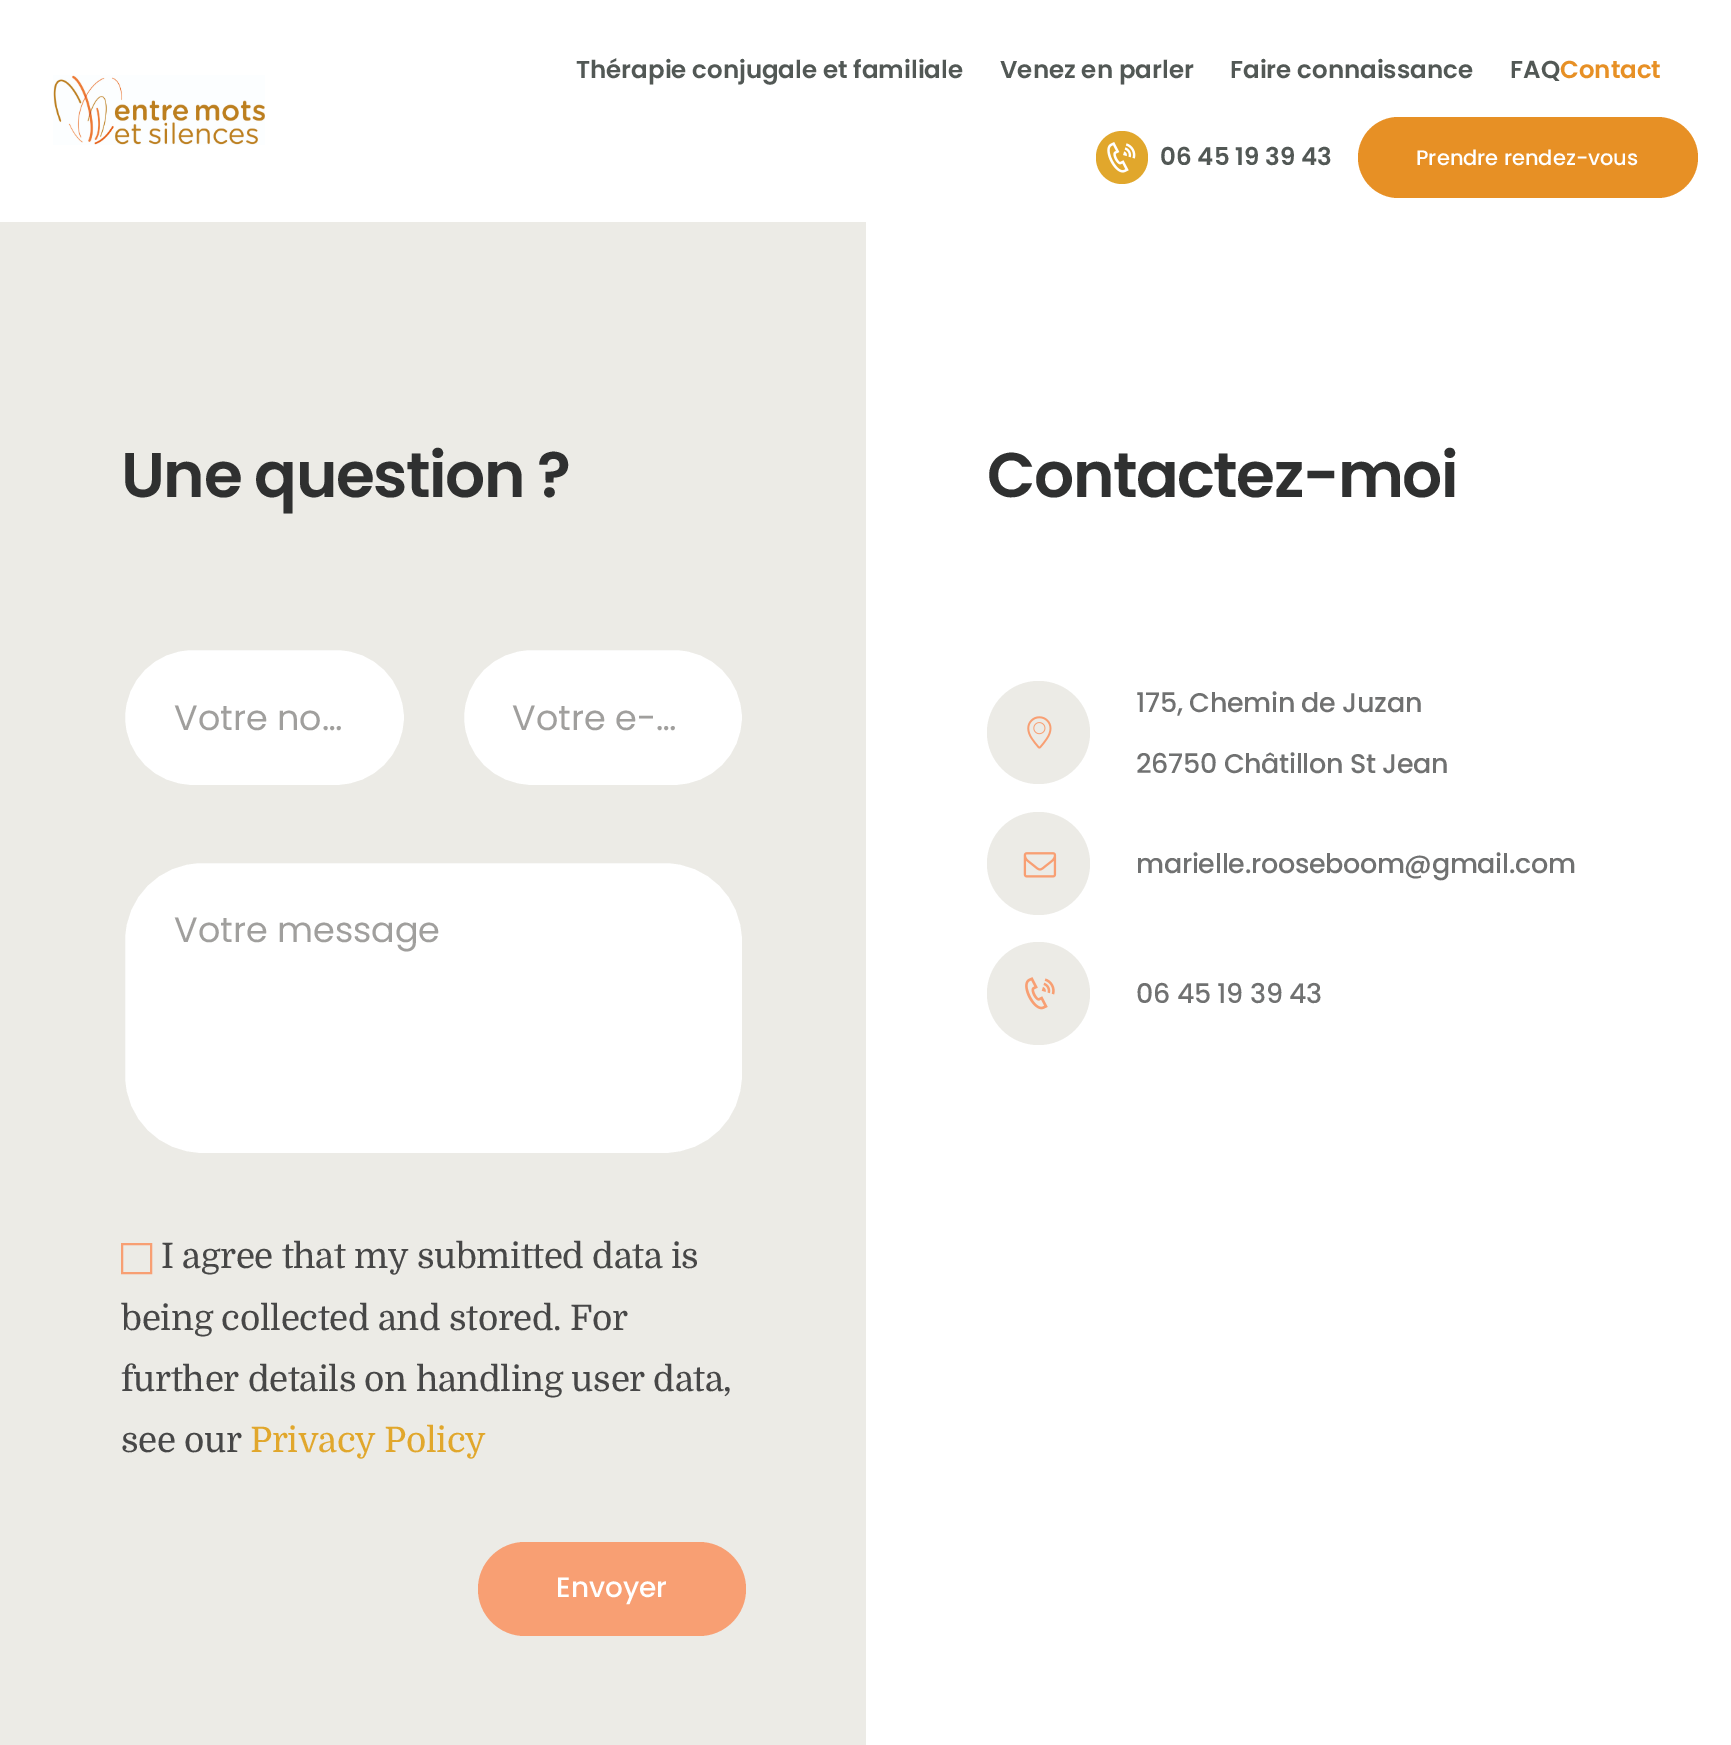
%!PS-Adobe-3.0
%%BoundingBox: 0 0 1731 1745
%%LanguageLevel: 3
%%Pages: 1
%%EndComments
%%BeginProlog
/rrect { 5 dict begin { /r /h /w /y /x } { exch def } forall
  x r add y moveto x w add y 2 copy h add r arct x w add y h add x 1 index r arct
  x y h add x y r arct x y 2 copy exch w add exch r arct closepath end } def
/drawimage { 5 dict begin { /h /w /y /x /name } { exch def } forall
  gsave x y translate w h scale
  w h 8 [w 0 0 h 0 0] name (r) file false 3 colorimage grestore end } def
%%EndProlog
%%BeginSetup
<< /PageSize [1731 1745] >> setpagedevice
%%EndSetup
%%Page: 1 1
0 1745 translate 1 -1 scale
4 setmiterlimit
1 setgray
0 0 1731 1745 rectfill
(images/1.raw) 53 75 212 70 drawimage
0.882 0.655 0.173 setrgbcolor
1096 131 52 53 26 rrect fill
(images/2.raw) 1107 142 29 31 drawimage
0.906 0.565 0.145 setrgbcolor
1358 117 340 81 40.5 rrect fill
0.925 0.922 0.902 setrgbcolor
0 222 866 1523 rectfill
1 setgray
123 648 283 139 69.5 rrect gsave fill grestore
0.925 0.922 0.902 setrgbcolor
4 setlinewidth
stroke
1 setgray
462 648 282 139 69.5 rrect gsave fill grestore
0.925 0.922 0.902 setrgbcolor
stroke
1 setgray
123 861 621 294 79 rrect gsave fill grestore
0.925 0.922 0.902 setrgbcolor
stroke
0.973 0.624 0.451 setrgbcolor
2 setlinewidth
122 1244 29 29 rectstroke
478 1542 268 94 47 rrect fill
0.925 0.922 0.902 setrgbcolor
newpath 1038.5 732.5 51.5 0 360 arc closepath fill
(images/3.raw) 1027 716 25 33 drawimage
newpath 1038.5 863.5 51.5 0 360 arc closepath fill
(images/4.raw) 1023 852 34 26 drawimage
newpath 1038.5 993.5 51.5 0 360 arc closepath fill
(images/5.raw) 1025 977 30 33 drawimage
/Poppins-SemiBold [24.5 0 0 -24.5 0 0] selectfont
0.322 0.345 0.333 setrgbcolor
576 78 moveto (Thérapie conjugale et familiale) show
1000 78 moveto (Venez en parler) show
1230 78 moveto (Faire connaissance) show
1510 78 moveto (FAQ) show
0.906 0.565 0.145 setrgbcolor
1560 78 moveto (Contact) show
0.322 0.345 0.333 setrgbcolor
1160 165 moveto (06 45 19 39 43) show
/Poppins-Medium [21 0 0 -21 0 0] selectfont
1 setgray
1416 165 moveto (Prendre rendez-vous) show
/Poppins-SemiBold [63 0 0 -63 0 0] selectfont
0.184 0.188 0.188 setrgbcolor
121 497 moveto -1.5 0 (Une question ?) ashow
/Poppins-Regular [35 0 0 -35 0 0] selectfont
0.627 0.624 0.616 setrgbcolor
174 730 moveto (Votre no…) show
512 730 moveto (Votre e-…) show
174 942 moveto (Votre message) show
/Domine-Regular [35 0 0 -35 0 0] selectfont
0.278 setgray
161 1268 moveto -0.35 0 (I agree that my submitted data is) ashow
121 1330 moveto -0.35 0 (being collected and stored. For) ashow
121 1391 moveto -0.35 0 (further details on handling user data,) ashow
121 1452 moveto -0.35 0 (see our) ashow
0.882 0.655 0.173 setrgbcolor
250 1452 moveto -0.35 0 (Privacy Policy) ashow
/Poppins-Medium [28 0 0 -28 0 0] selectfont
1 setgray
556 1597 moveto (Envoyer) show
/Poppins-SemiBold [63 0 0 -63 0 0] selectfont
0.184 0.188 0.188 setrgbcolor
987 497 moveto -1.5 0 (Contactez-moi) ashow
/Poppins-Medium [27 0 0 -27 0 0] selectfont
0.439 0.443 0.443 setrgbcolor
1136 712 moveto -0.35 0 (175, Chemin de Juzan) ashow
1136 773 moveto -0.35 0 (26750 Châtillon St Jean) ashow
1136 873 moveto -0.35 0 (marielle.rooseboom@gmail.com) ashow
1136 1003 moveto -0.35 0 (06 45 19 39 43) ashow
showpage
%%EOF
